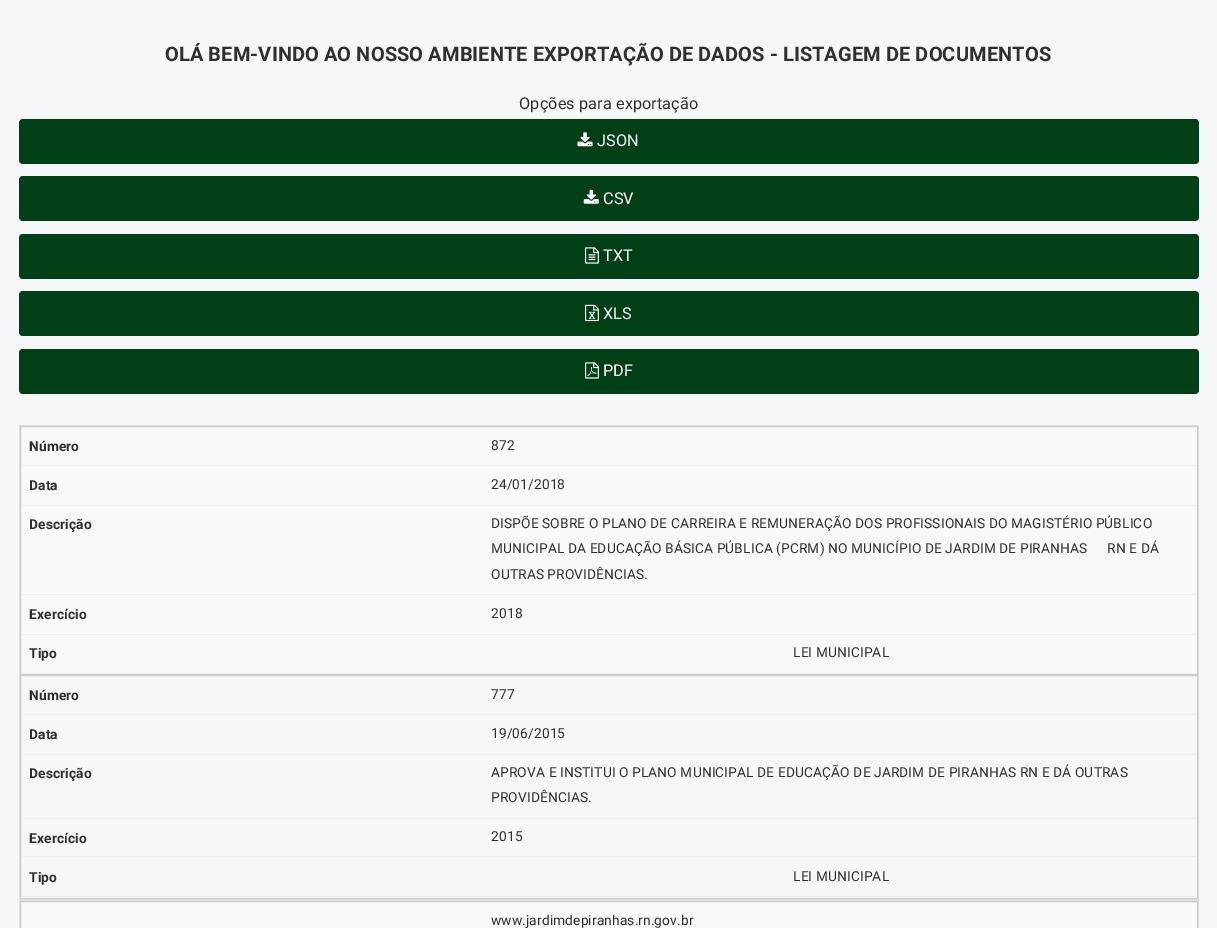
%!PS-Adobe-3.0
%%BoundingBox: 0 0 1217 928
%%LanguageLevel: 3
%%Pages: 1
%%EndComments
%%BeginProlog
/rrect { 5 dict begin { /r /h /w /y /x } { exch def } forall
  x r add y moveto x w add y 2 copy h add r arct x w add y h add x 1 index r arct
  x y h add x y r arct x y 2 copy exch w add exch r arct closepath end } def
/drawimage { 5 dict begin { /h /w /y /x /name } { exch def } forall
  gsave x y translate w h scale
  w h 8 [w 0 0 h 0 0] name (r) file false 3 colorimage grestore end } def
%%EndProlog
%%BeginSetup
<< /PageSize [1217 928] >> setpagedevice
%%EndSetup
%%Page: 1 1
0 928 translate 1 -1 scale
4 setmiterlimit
0.965 0.969 0.973 setrgbcolor
0 0 1217 928 rectfill
0.004 0.251 0.09 setrgbcolor
19 119 1180 45 4 rrect fill
(images/1.raw) 577 132 16 15 drawimage
19 176 1180 45 4 rrect fill
(images/2.raw) 583 189 16 15 drawimage
19 234 1180 45 4 rrect fill
(images/3.raw) 585 247 14 17 drawimage
19 291 1180 45 4 rrect fill
(images/4.raw) 585 304 14 18 drawimage
19 349 1180 45 4 rrect fill
(images/5.raw) 585 362 14 17 drawimage
0.867 setgray
19 425 1180 1 rectfill
1198 425 1 503 rectfill
19 425 1 503 rectfill
0.976 setgray
newpath 20.5 426.5 moveto 1197.5 426.5 lineto 1197.5 674.5 lineto 20.5 674.5 lineto closepath gsave fill grestore
0.8 setgray
stroke
0.933 setgray
21 465 1175 1 rectfill
21 505 1175 1 rectfill
21 594 1175 1 rectfill
21 634 1175 1 rectfill
21 673 1175 1 rectfill
0.8 setgray
20.5 675.5 1177 223 rectstroke
0.933 setgray
21 714 1175 1 rectfill
21 754 1175 1 rectfill
21 818 1175 1 rectfill
21 856 1175 1 rectfill
21 896 1175 1 rectfill
0.867 setgray
20 899 1178 2 rectfill
0.976 setgray
newpath 20.5 901.5 moveto 1197.5 901.5 lineto 1197.5 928.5 lineto 20.5 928.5 lineto closepath gsave fill grestore
0.8 setgray
stroke
/Roboto-Bold [20 0 0 -20 0 0] selectfont
0.188 setgray
165 61 moveto 0.12 0 (OLÁ BEM-VINDO AO NOSSO AMBIENTE EXPORTAÇÃO DE DADOS - LISTAGEM DE DOCUMENTOS) ashow
/Roboto-Regular [16.25 0 0 -16.25 0 0] selectfont
519 109 moveto 0.12 0 (Opções para exportação) ashow
1 setgray
597 146 moveto 0.12 0 (JSON) ashow
603 204 moveto 0.12 0 (CSV) ashow
603 261 moveto 0.12 0 (TXT) ashow
603 319 moveto 0.12 0 (XLS) ashow
603 376 moveto 0.12 0 (PDF) ashow
/Roboto-Bold [13.75 0 0 -13.75 0 0] selectfont
0.188 setgray
29 451 moveto 0.12 0 (Número) ashow
/Roboto-Regular [13.75 0 0 -13.75 0 0] selectfont
491 450 moveto 0.12 0 (872) ashow
/Roboto-Bold [13.75 0 0 -13.75 0 0] selectfont
29 490 moveto 0.12 0 (Data) ashow
/Roboto-Regular [13.75 0 0 -13.75 0 0] selectfont
491 489 moveto 0.12 0 (24/01/2018) ashow
/Roboto-Bold [13.75 0 0 -13.75 0 0] selectfont
29 529 moveto 0.12 0 (Descrição) ashow
/Roboto-Regular [13.75 0 0 -13.75 0 0] selectfont
491 528 moveto 0.12 0 (DISPÕE SOBRE O PLANO DE CARREIRA E REMUNERAÇÃO DOS PROFISSIONAIS DO MAGISTÉRIO PÚBLICO) ashow
491 553 moveto 0.12 0 (MUNICIPAL DA EDUCAÇÃO BÁSICA PÚBLICA \(PCRM\) NO MUNICÍPIO DE JARDIM DE PIRANHAS) ashow
1107 553 moveto 0.12 0 (RN E DÁ) ashow
491 579 moveto 0.12 0 (OUTRAS PROVIDÊNCIAS.) ashow
/Roboto-Bold [13.75 0 0 -13.75 0 0] selectfont
29 619 moveto 0.12 0 (Exercício) ashow
/Roboto-Regular [13.75 0 0 -13.75 0 0] selectfont
491 618 moveto 0.12 0 (2018) ashow
/Roboto-Bold [13.75 0 0 -13.75 0 0] selectfont
29 658 moveto 0.12 0 (Tipo) ashow
/Roboto-Regular [13.75 0 0 -13.75 0 0] selectfont
793 657 moveto 0.12 0 (LEI MUNICIPAL) ashow
/Roboto-Bold [13.75 0 0 -13.75 0 0] selectfont
29 700 moveto 0.12 0 (Número) ashow
/Roboto-Regular [13.75 0 0 -13.75 0 0] selectfont
491 699 moveto 0.12 0 (777) ashow
/Roboto-Bold [13.75 0 0 -13.75 0 0] selectfont
29 739 moveto 0.12 0 (Data) ashow
/Roboto-Regular [13.75 0 0 -13.75 0 0] selectfont
491 738 moveto 0.12 0 (19/06/2015) ashow
/Roboto-Bold [13.75 0 0 -13.75 0 0] selectfont
29 778 moveto 0.12 0 (Descrição) ashow
/Roboto-Regular [13.75 0 0 -13.75 0 0] selectfont
491 777 moveto 0.12 0 (APROVA E INSTITUI O PLANO MUNICIPAL DE EDUCAÇÃO DE JARDIM DE PIRANHAS RN E DÁ OUTRAS) ashow
491 802 moveto 0.12 0 (PROVIDÊNCIAS.) ashow
/Roboto-Bold [13.75 0 0 -13.75 0 0] selectfont
29 843 moveto 0.12 0 (Exercício) ashow
/Roboto-Regular [13.75 0 0 -13.75 0 0] selectfont
491 841 moveto 0.12 0 (2015) ashow
/Roboto-Bold [13.75 0 0 -13.75 0 0] selectfont
29 882 moveto 0.12 0 (Tipo) ashow
/Roboto-Regular [13.75 0 0 -13.75 0 0] selectfont
793 881 moveto 0.12 0 (LEI MUNICIPAL) ashow
491 925 moveto 0.12 0 (www.jardimdepiranhas.rn.gov.br) ashow
showpage
%%EOF
